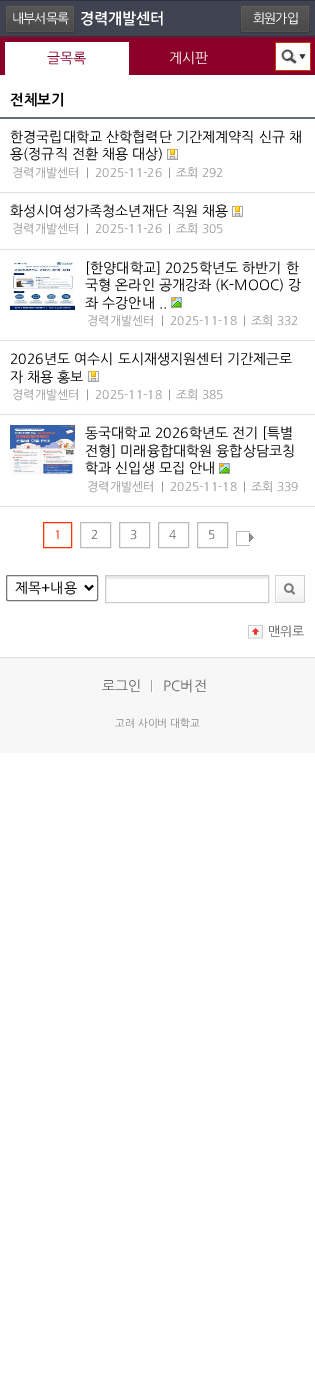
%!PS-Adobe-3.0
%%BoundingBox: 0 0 315 1389
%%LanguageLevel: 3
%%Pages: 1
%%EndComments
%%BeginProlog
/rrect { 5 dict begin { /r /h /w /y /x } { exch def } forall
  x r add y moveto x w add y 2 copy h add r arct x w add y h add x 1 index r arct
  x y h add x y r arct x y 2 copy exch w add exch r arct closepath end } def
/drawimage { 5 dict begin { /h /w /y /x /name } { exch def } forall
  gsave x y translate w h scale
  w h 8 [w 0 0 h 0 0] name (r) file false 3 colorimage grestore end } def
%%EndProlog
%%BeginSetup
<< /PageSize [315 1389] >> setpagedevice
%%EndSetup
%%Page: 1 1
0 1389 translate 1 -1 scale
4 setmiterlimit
1 setgray
0 0 315 1389 rectfill
(images/1.raw) 0 1 315 35 drawimage
0.176 0.196 0.255 setrgbcolor
0 0 315 1 rectfill
0 36 315 1 rectfill
(images/2.raw) 5 5 70 28 drawimage
(images/2.raw) 240 5 70 28 drawimage
0.545 0 0.161 setrgbcolor
0 37 315 38 rectfill
1 setgray
5 42 124 33 rectfill
(images/3.raw) 275 42 36 29 drawimage
0.392 0.439 0.467 setrgbcolor
0 117 315 2 rectfill
0.875 setgray
0 192 315 1 rectfill
(images/4.raw) 167 149 11 11 drawimage
0 249 315 1 rectfill
(images/4.raw) 232 206 11 11 drawimage
0 340 315 1 rectfill
(images/5.raw) 10 261 65 49 drawimage
(images/6.raw) 171 297 11 11 drawimage
0 414 315 1 rectfill
(images/4.raw) 88 371 11 11 drawimage
0 506 315 1 rectfill
(images/7.raw) 10 425 65 50 drawimage
(images/6.raw) 219 463 11 11 drawimage
1 0.2 0 setrgbcolor
43.5 522.5 28 25 rectstroke
0.737 setgray
80.5 522.5 30 25 rectstroke
119.5 522.5 30 25 rectstroke
158.5 522.5 30 25 rectstroke
197.5 522.5 30 25 rectstroke
236 531 14 1 rectfill
236 545 14 1 rectfill
236 531 1 15 rectfill
(images/8.raw) 249 533 5 9 drawimage
0.463 setgray
6.5 575.5 91 25 1.5 rrect stroke
0 setgray
2 setlinewidth
newpath 85 585.5 moveto 89 589.5 lineto 93 585.5 lineto stroke
0.929 setgray
105 576 164 3 rectfill
0.8 setgray
1 setlinewidth
105.5 575.5 163 27 rectstroke
(images/9.raw) 275 575 30 28 drawimage
(images/10.raw) 248 625 15 14 drawimage
0.969 setgray
0 658 315 95 rectfill
0.863 setgray
0 657 315 1 rectfill
(images/11.raw) 151 680 2 12 drawimage
/NanumGothic-Regular [13 0 0 -13 0 0] selectfont
1 setgray
12 23 moveto -1 0 (내부서목록) ashow
/NanumGothic-Bold [15 0 0 -15 0 0] selectfont
80 24 moveto (경력개발센터) show
/NanumGothic-Regular [13 0 0 -13 0 0] selectfont
253 23 moveto -1 0 (회원가입) ashow
/NanumGothic-Regular [14 0 0 -14 0 0] selectfont
0.545 0 0.161 setrgbcolor
47 63 moveto (글목록) show
1 setgray
169 63 moveto (게시판) show
/NanumGothic-Bold [14.5 0 0 -14.5 0 0] selectfont
0 setgray
10 105 moveto (전체보기) show
/NanumGothic-Regular [14 0 0 -14 0 0] selectfont
10 142 moveto (한경국립대학교 산학협력단 기간제계약직 신규 채) show
10 159 moveto (용\(정규직 전환 채용 대상\)) show
/NanumGothic-Regular [12 0 0 -12 0 0] selectfont
0.6 setgray
12 177 moveto (경력개발센터) show
86 177 moveto (|) show
95 177 moveto (2025-11-26) show
168 177 moveto (|) show
176 177 moveto (조회 292) show
/NanumGothic-Regular [14 0 0 -14 0 0] selectfont
0 setgray
10 216 moveto (화성시여성가족청소년재단 직원 채용) show
/NanumGothic-Regular [12 0 0 -12 0 0] selectfont
0.6 setgray
12 233 moveto (경력개발센터) show
86 233 moveto (|) show
95 233 moveto (2025-11-26) show
168 233 moveto (|) show
176 233 moveto (조회 305) show
/NanumGothic-Regular [14 0 0 -14 0 0] selectfont
0 setgray
85 273 moveto ([한양대학교] 2025학년도 하반기 한) show
85 290 moveto (국형 온라인 공개강좌 \(K-MOOC\) 강) show
85 308 moveto (좌 수강안내 ..) show
/NanumGothic-Regular [12 0 0 -12 0 0] selectfont
0.6 setgray
87 325 moveto (경력개발센터) show
161 325 moveto (|) show
170 325 moveto (2025-11-18) show
243 325 moveto (|) show
251 325 moveto (조회 332) show
/NanumGothic-Regular [14 0 0 -14 0 0] selectfont
0 setgray
10 364 moveto (2026년도 여수시 도시재생지원센터 기간제근로) show
10 382 moveto (자 채용 홍보) show
/NanumGothic-Regular [12 0 0 -12 0 0] selectfont
0.6 setgray
12 399 moveto (경력개발센터) show
86 399 moveto (|) show
95 399 moveto (2025-11-18) show
168 399 moveto (|) show
176 399 moveto (조회 385) show
/NanumGothic-Regular [14 0 0 -14 0 0] selectfont
0 setgray
85 438 moveto (동국대학교 2026학년도 전기 [특별) show
85 456 moveto (전형] 미래융합대학원 융합상담코칭) show
85 473 moveto (학과 신입생 모집 안내) show
/NanumGothic-Regular [12 0 0 -12 0 0] selectfont
0.6 setgray
87 491 moveto (경력개발센터) show
161 491 moveto (|) show
170 491 moveto (2025-11-18) show
243 491 moveto (|) show
251 491 moveto (조회 339) show
1 0.2 0 setrgbcolor
54 539 moveto (1) show
0.4 setgray
91 539 moveto (2) show
130 539 moveto (3) show
169 539 moveto (4) show
208 539 moveto (5) show
/NanumGothic-Regular [14 0 0 -14 0 0] selectfont
0 setgray
15 593 moveto (제목+내용) show
/NanumGothic-Regular [13 0 0 -13 0 0] selectfont
0.4 setgray
268 636 moveto (맨위로) show
/NanumGothic-Regular [14 0 0 -14 0 0] selectfont
102 691 moveto (로그인) show
163 691 moveto (PC버전) show
/NanumGothic-Regular [10.5 0 0 -10.5 0 0] selectfont
0.533 setgray
115 727 moveto (고려 사이버 대학교) show
showpage
%%EOF
